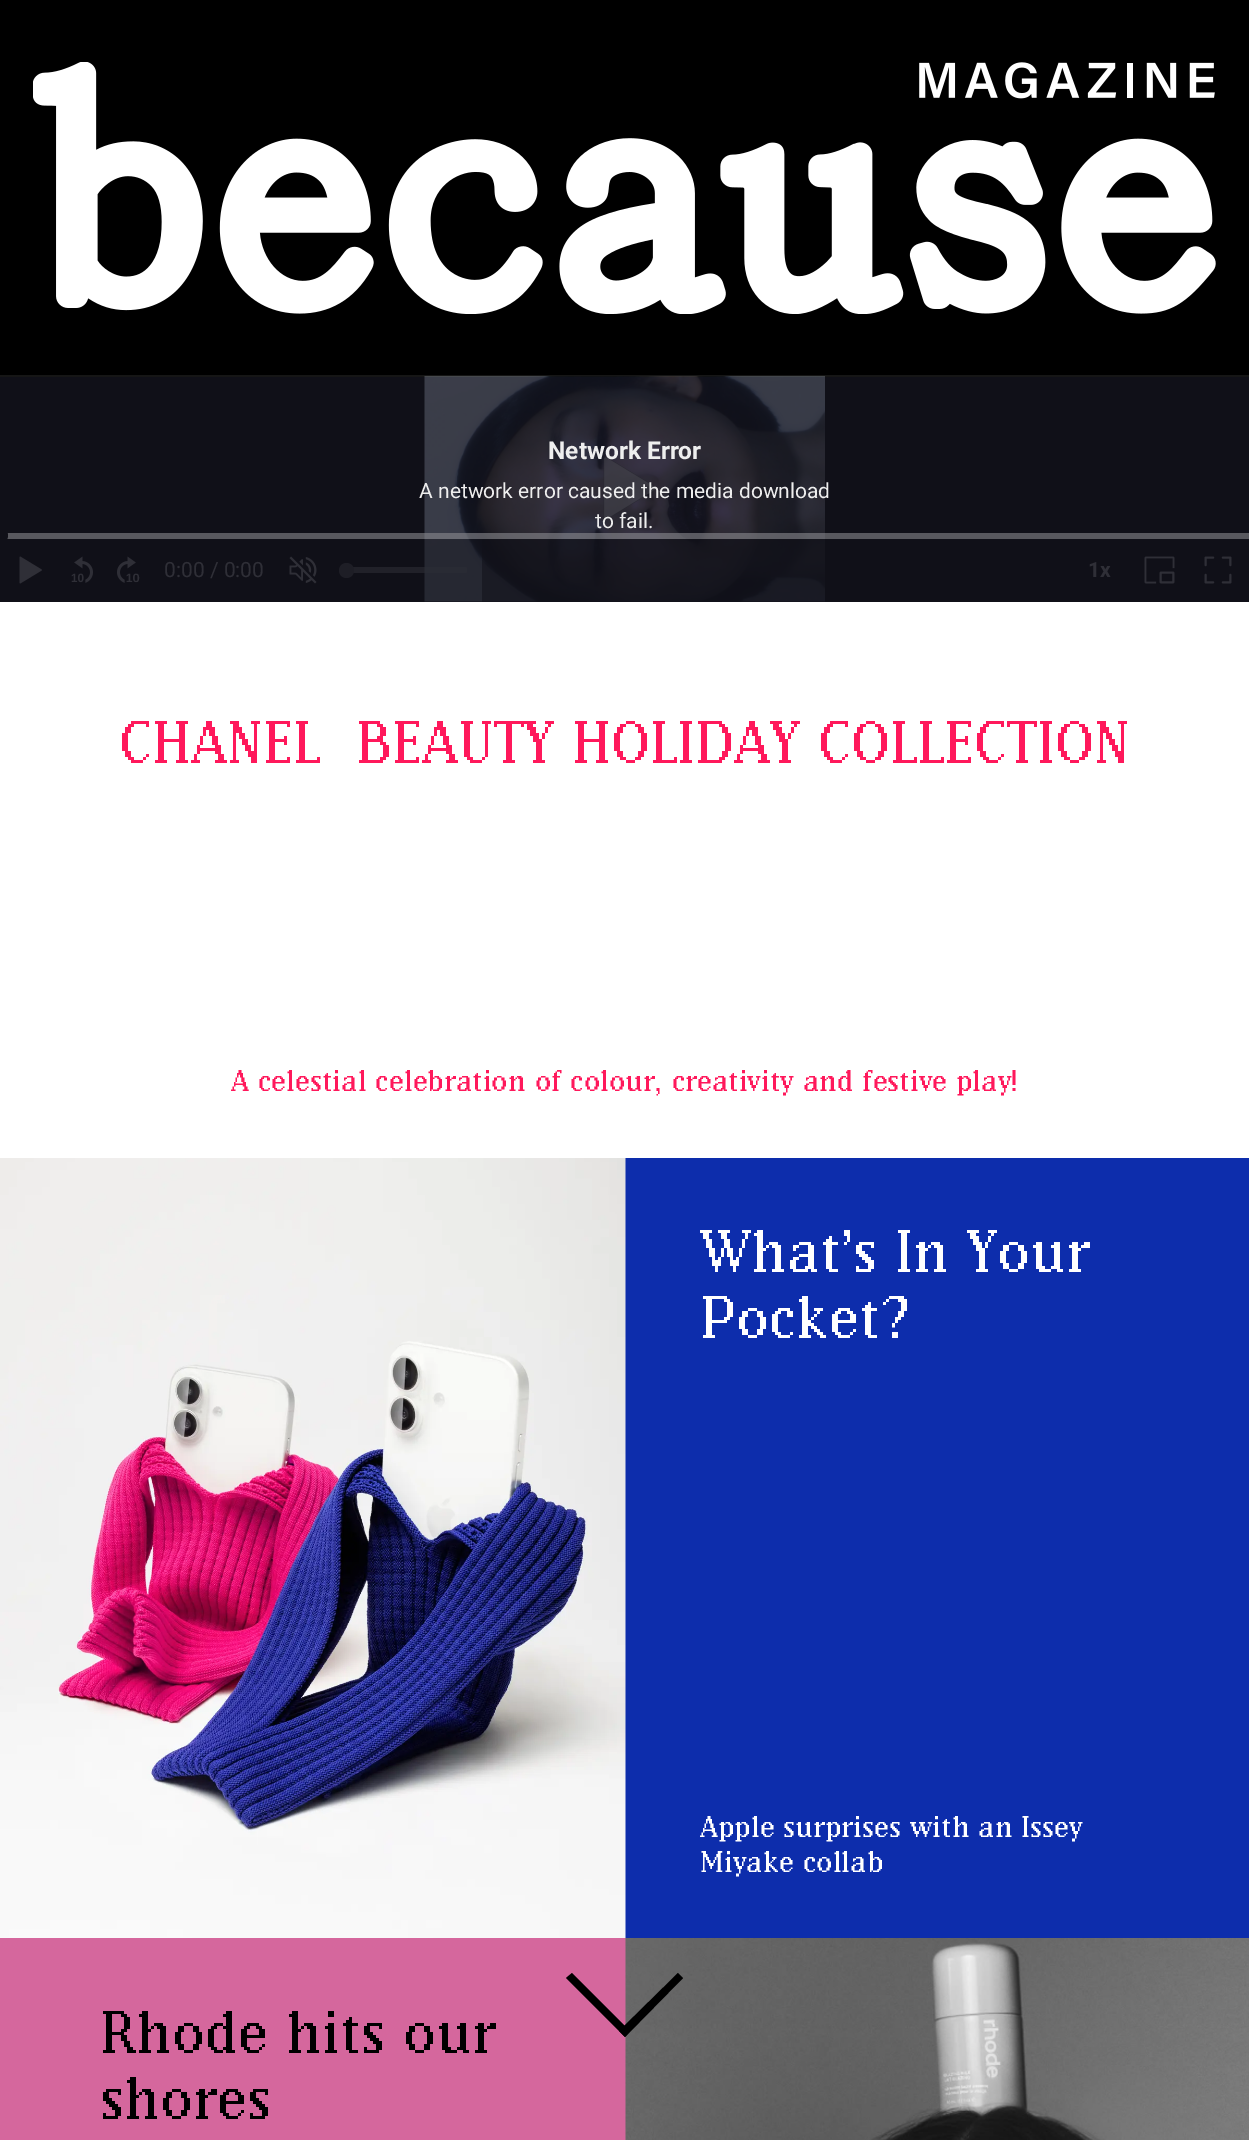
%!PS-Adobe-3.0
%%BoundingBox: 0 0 1249 2140
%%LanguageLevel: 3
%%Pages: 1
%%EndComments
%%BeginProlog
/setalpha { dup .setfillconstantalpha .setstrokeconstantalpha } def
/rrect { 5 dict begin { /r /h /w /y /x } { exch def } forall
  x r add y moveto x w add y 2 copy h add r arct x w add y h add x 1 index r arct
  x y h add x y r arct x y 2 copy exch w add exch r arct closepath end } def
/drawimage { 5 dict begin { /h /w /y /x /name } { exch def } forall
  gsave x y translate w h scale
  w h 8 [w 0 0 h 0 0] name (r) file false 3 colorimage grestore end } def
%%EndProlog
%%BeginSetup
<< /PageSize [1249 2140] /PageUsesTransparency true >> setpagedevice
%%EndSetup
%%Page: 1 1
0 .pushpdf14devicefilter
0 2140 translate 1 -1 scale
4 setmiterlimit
1 setgray
0 0 1249 2140 rectfill
0.086 setgray
0 375 1249 2 rectfill
0 setgray
0 0 1249 375 rectfill
(images/1.raw) 33 62 1183 252 drawimage
0.063 0.063 0.094 setrgbcolor
0 377 1249 225 rectfill
(images/2.raw) 424 376 401 226 drawimage
(images/3.raw) 603 457 53 63 drawimage
0.42 setalpha
0.078 0.078 0.118 setrgbcolor
424 533 401 6 rectfill
0.3 setalpha
1 setgray
0 533 1249 6 rectfill
1 setalpha
0.063 0.063 0.094 setrgbcolor
newpath 0.5 535.5 7.5 0 360 arc closepath fill
(images/4.raw) 19 556 23 28 drawimage
(images/5.raw) 289 556 28 28 drawimage
0.45 setalpha
424 539 58 63 rectfill
0.42 setalpha
0.078 0.078 0.118 setrgbcolor
347 567 120 6 1.5 rrect fill
0.3 setalpha
0.263 0.263 0.294 setrgbcolor
347 567 120 6 1.5 rrect fill
1 setalpha
0.118 0.118 0.149 setrgbcolor
newpath 346.5 570.5 7.5 0 360 arc closepath fill
0.75 setalpha
0.063 0.063 0.094 setrgbcolor
482 539 343 63 rectfill
1 setalpha
(images/6.raw) 1144 556 31 28 drawimage
(images/7.raw) 1204 556 28 28 drawimage
0.051 0.176 0.675 setrgbcolor
625 1158 624 780 rectfill
(images/10.raw) 0 1158 626 780 drawimage
0.835 0.404 0.616 setrgbcolor
0 1938 626 202 rectfill
(images/11.raw) 625 1938 624 202 drawimage
0 setgray
newpath 678 1973 moveto 683 1978 lineto 625 2037 lineto 619 2031 lineto closepath fill
newpath 572 1973 moveto 630 2031 lineto 625 2037 lineto 566 1978 lineto closepath fill
/Roboto-Bold [24.5 0 0 -24.5 0 0] selectfont
0.933 setgray
548 459 moveto (Network Error) show
/Roboto-Regular [21 0 0 -21 0 0] selectfont
419 498 moveto (A network error caused the media download) show
595 528 moveto (to fail.) show
0.184 0.184 0.216 setrgbcolor
164 577 moveto (0:00 / 0:00) show
/Roboto-Bold [21 0 0 -21 0 0] selectfont
1088 577 moveto (1x) show
/LiberationSans-Bold [12 0 0 -12 0 0] selectfont
71 582 moveto (10) show
(images/8.raw) 74 556 19 27 drawimage
126 582 moveto (10) show
(images/9.raw) 117 556 19 27 drawimage
/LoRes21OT-Regular [63 0 0 -63 0 0] selectfont
1 0.094 0.357 setrgbcolor
119 763 moveto (CHANEL  BEAUTY HOLIDAY COLLECTION) show
/LoRes21OT-Regular [31.25 0 0 -31.25 0 0] selectfont
231 1091 moveto (A celestial celebration of colour, creativity and festive play!) show
/LoRes21OT-Regular [63 0 0 -63 0 0] selectfont
1 setgray
700 1272 moveto (What’s In Your) show
700 1338 moveto (Pocket?) show
/LoRes21OT-Regular [31.25 0 0 -31.25 0 0] selectfont
700 1837 moveto (Apple surprises with an Issey) show
700 1872 moveto (Miyake collab) show
/LoRes21OT-Regular [63 0 0 -63 0 0] selectfont
0 setgray
100 2053 moveto (Rhode hits our) show
100 2119 moveto (shores) show
.poppdf14devicefilter showpage
%%EOF
